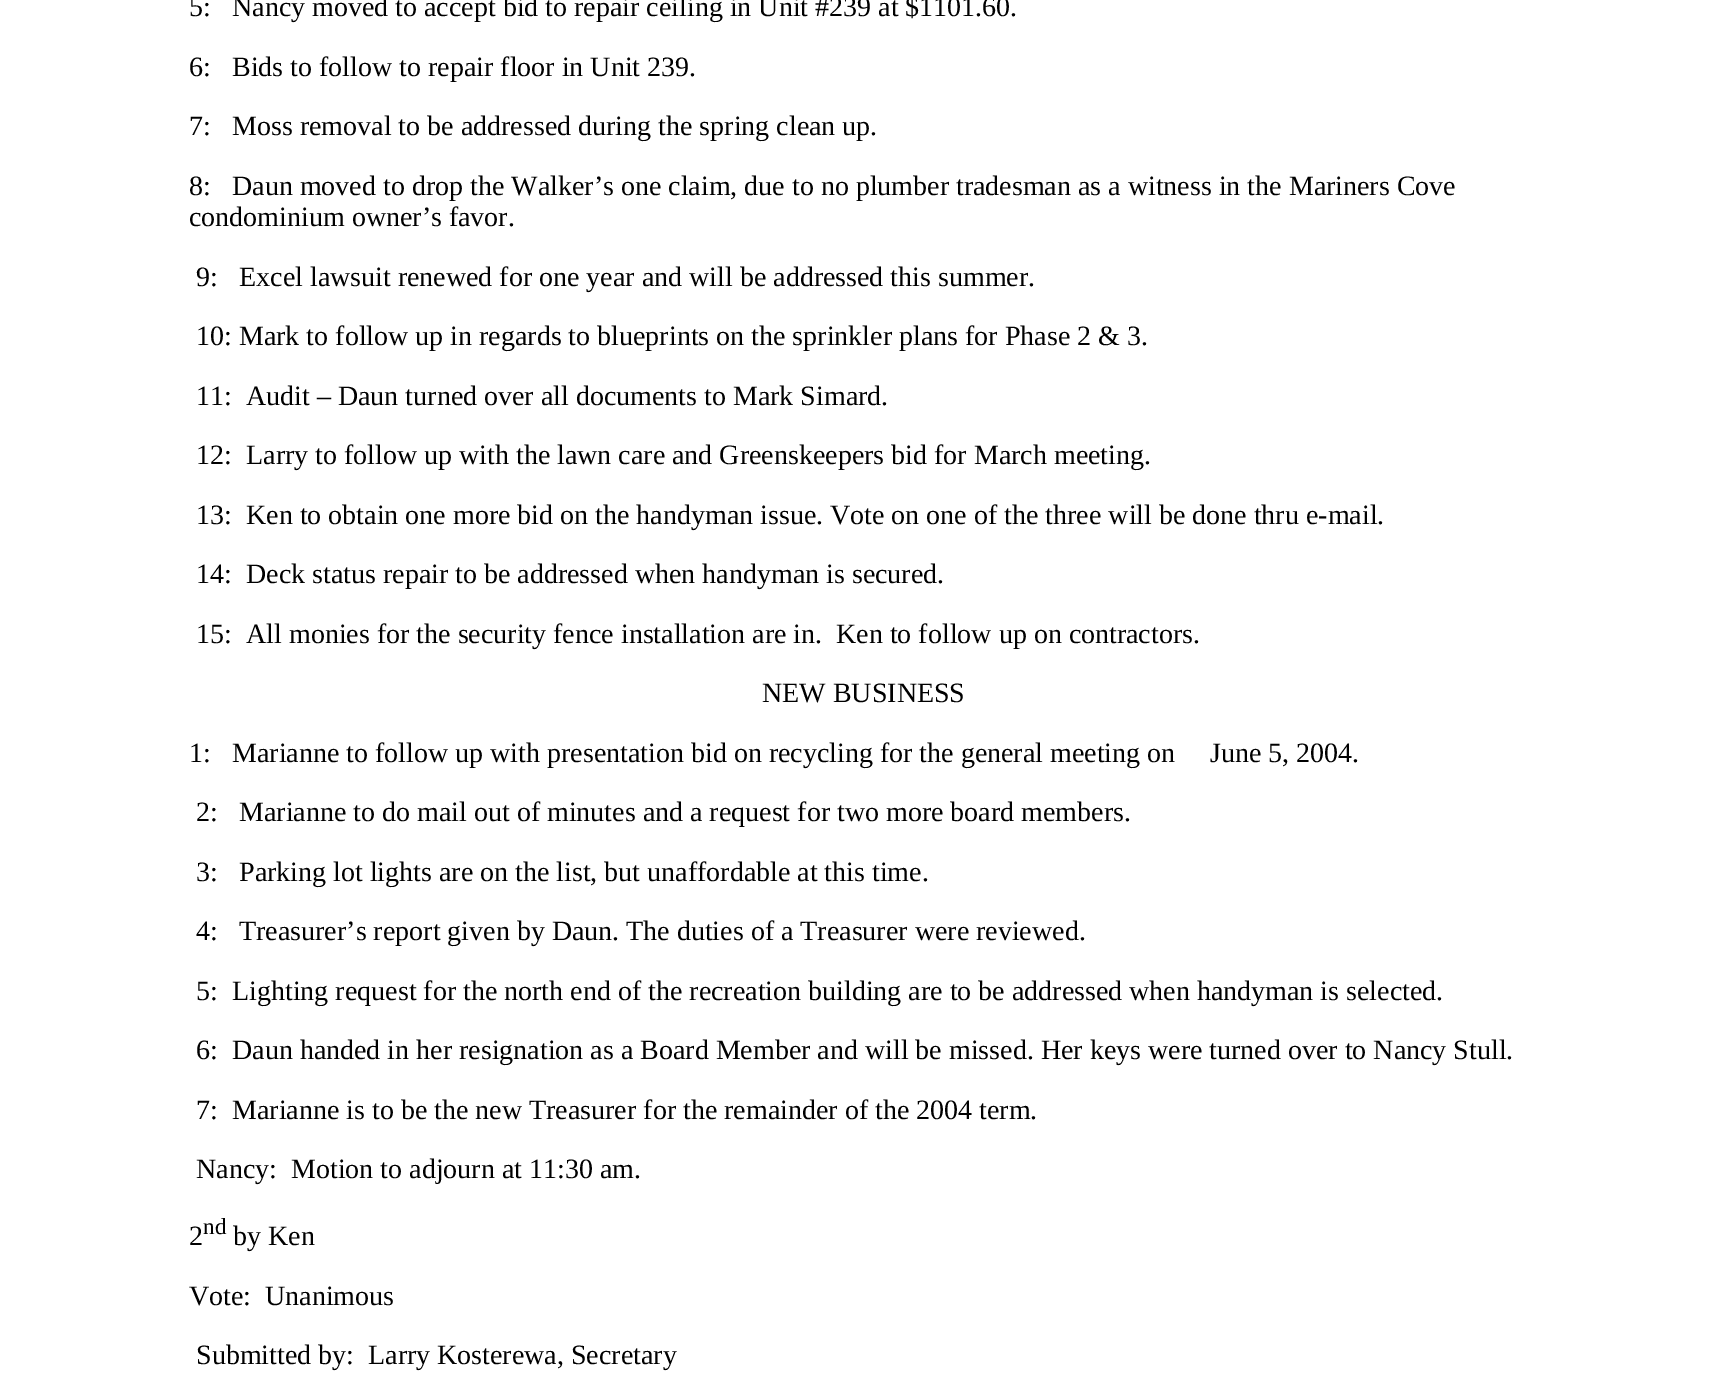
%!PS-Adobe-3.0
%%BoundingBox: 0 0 1726 1391
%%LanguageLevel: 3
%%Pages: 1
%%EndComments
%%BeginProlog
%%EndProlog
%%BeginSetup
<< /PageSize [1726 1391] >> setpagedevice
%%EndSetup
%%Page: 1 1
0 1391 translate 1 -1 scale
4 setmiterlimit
1 setgray
0 0 1726 1391 rectfill
/LiberationSerif-Regular [28 0 0 -28 0 0] selectfont
0 setgray
189 16 moveto (5:) show
232 16 moveto (Nancy moved to accept bid to repair ceiling in Unit #239 at $1101.60.) show
189 76 moveto (6:) show
232 76 moveto (Bids to follow to repair floor in Unit 239.) show
189 135 moveto (7:) show
232 135 moveto (Moss removal to be addressed during the spring clean up.) show
189 195 moveto (8:) show
232 195 moveto (Daun moved to drop the Walker’s one claim, due to no plumber tradesman as a witness in the Mariners Cove) show
189 226 moveto (condominium owner’s favor.) show
196 286 moveto (9:) show
239 286 moveto (Excel lawsuit renewed for one year and will be addressed this summer.) show
196 345 moveto (10: Mark to follow up in regards to blueprints on the sprinkler plans for Phase 2 & 3.) show
196 405 moveto (11:) show
246 405 moveto (Audit – Daun turned over all documents to Mark Simard.) show
196 464 moveto (12:) show
246 464 moveto (Larry to follow up with the lawn care and Greenskeepers bid for March meeting.) show
196 524 moveto (13:) show
246 524 moveto (Ken to obtain one more bid on the handyman issue. Vote on one of the three will be done thru e-mail.) show
196 583 moveto (14:) show
246 583 moveto (Deck status repair to be addressed when handyman is secured.) show
196 643 moveto (15:) show
246 643 moveto (All monies for the security fence installation are in.) show
836 643 moveto (Ken to follow up on contractors.) show
762 702 moveto (NEW BUSINESS) show
189 762 moveto (1:) show
232 762 moveto (Marianne to follow up with presentation bid on recycling for the general meeting on) show
1210 762 moveto (June 5, 2004.) show
196 821 moveto (2:) show
239 821 moveto (Marianne to do mail out of minutes and a request for two more board members.) show
196 881 moveto (3:) show
239 881 moveto (Parking lot lights are on the list, but unaffordable at this time.) show
196 940 moveto (4:) show
239 940 moveto (Treasurer’s report given by Daun. The duties of a Treasurer were reviewed.) show
196 1000 moveto (5:) show
232 1000 moveto (Lighting request for the north end of the recreation building are to be addressed when handyman is selected.) show
196 1059 moveto (6:) show
232 1059 moveto (Daun handed in her resignation as a Board Member and will be missed. Her keys were turned over to Nancy Stull.) show
196 1119 moveto (7:) show
232 1119 moveto (Marianne is to be the new Treasurer for the remainder of the 2004 term.) show
196 1178 moveto (Nancy:) show
291 1178 moveto (Motion to adjourn at 11:30 am.) show
189 1245 moveto (2) show
/LiberationSerif-Regular [23 0 0 -23 0 0] selectfont
203 1234 moveto (nd) show
/LiberationSerif-Regular [28 0 0 -28 0 0] selectfont
233 1245 moveto (by Ken) show
189 1305 moveto (Vote:) show
265 1305 moveto (Unanimous) show
196 1364 moveto (Submitted by:) show
368 1364 moveto (Larry Kosterewa, Secretary) show
showpage
%%EOF
